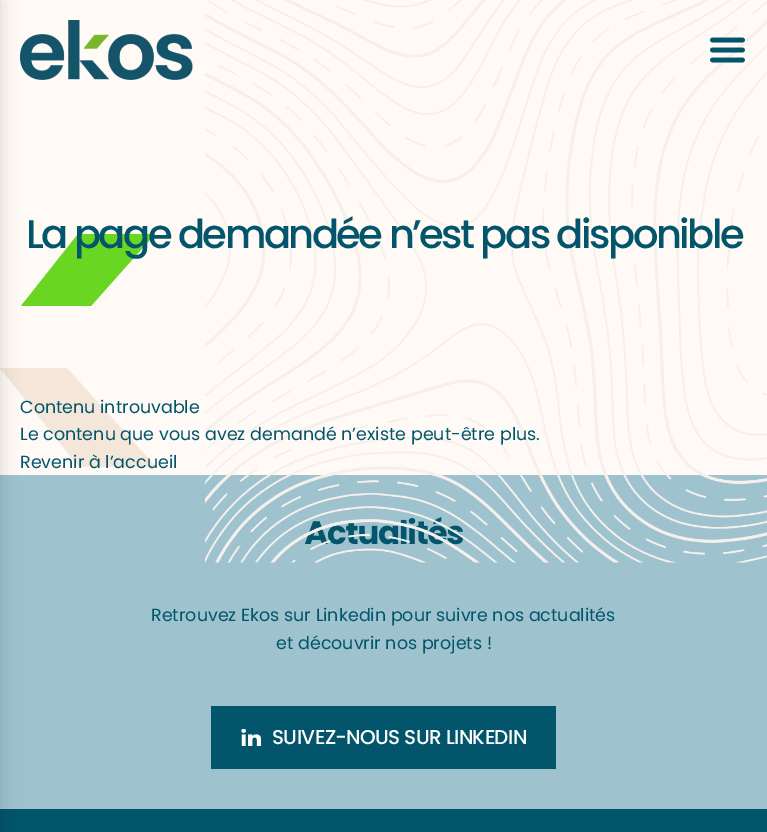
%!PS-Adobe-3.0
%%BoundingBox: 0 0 767 832
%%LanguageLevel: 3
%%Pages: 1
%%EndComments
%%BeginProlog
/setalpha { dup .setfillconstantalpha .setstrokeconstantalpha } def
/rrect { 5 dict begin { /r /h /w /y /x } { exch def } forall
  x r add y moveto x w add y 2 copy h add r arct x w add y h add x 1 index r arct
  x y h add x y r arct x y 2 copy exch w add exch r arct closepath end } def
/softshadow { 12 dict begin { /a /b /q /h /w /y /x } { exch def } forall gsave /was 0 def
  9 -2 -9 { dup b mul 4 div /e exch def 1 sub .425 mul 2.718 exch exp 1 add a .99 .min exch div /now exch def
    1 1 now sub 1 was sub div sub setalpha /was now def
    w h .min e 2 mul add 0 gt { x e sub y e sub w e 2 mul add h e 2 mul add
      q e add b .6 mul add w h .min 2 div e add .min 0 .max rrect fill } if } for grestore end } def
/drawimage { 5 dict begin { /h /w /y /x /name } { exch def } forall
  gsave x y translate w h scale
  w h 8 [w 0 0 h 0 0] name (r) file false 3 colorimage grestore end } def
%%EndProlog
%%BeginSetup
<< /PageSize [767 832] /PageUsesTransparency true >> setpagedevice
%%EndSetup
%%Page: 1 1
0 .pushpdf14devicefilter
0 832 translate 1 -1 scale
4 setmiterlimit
1 0.98 0.961 setrgbcolor
0 0 767 832 rectfill
(images/1.raw) 20 20 173 60 drawimage
0.412 0.843 0.129 setrgbcolor
newpath 155 234 moveto 78 234 lineto 21 306 lineto 91 306 lineto closepath fill
0.957 0.906 0.851 setrgbcolor
newpath 67 368 moveto 0 368 lineto 79 467 lineto 156 467 lineto closepath fill
0.62 0.765 0.812 setrgbcolor
0 475 767 334 rectfill
0.008 0.333 0.416 setrgbcolor
0 809 767 23 rectfill
0 setgray
-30 0 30 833 0 10 0.16 softshadow
0.008 0.333 0.416 setrgbcolor
211 706 345 63 rectfill
(images/4.raw) 241 729 20 17 drawimage
/Poppins-Regular [17.5 0 0 -17.5 0 0] selectfont
20 413 moveto (Contenu introuvable) show
20 468 moveto (Revenir à l’accueil) show
/Poppins-Bold [32.5 0 0 -32.5 0 0] selectfont
304 544 moveto -1.25 0 (Actualités) ashow
(images/3.raw) 205 0 562 563 drawimage
(images/2.raw) 710 37 35 26 drawimage
/Poppins-Medium [40 0 0 -40 0 0] selectfont
26 248 moveto -2.5 0 (La page demandée n’est pas disponible) ashow
/Poppins-Regular [17.5 0 0 -17.5 0 0] selectfont
20 440 moveto (Le contenu que vous avez demandé n’existe peut-être plus.) show
151 621 moveto (Retrouvez Ekos sur Linkedin pour suivre nos actualités) show
276 649 moveto (et découvrir nos projets !) show
/Poppins-Medium [20 0 0 -20 0 0] selectfont
1 setgray
272 744 moveto -0.6 0 (SUIVEZ-NOUS SUR LINKEDIN) ashow
.poppdf14devicefilter showpage
%%EOF
